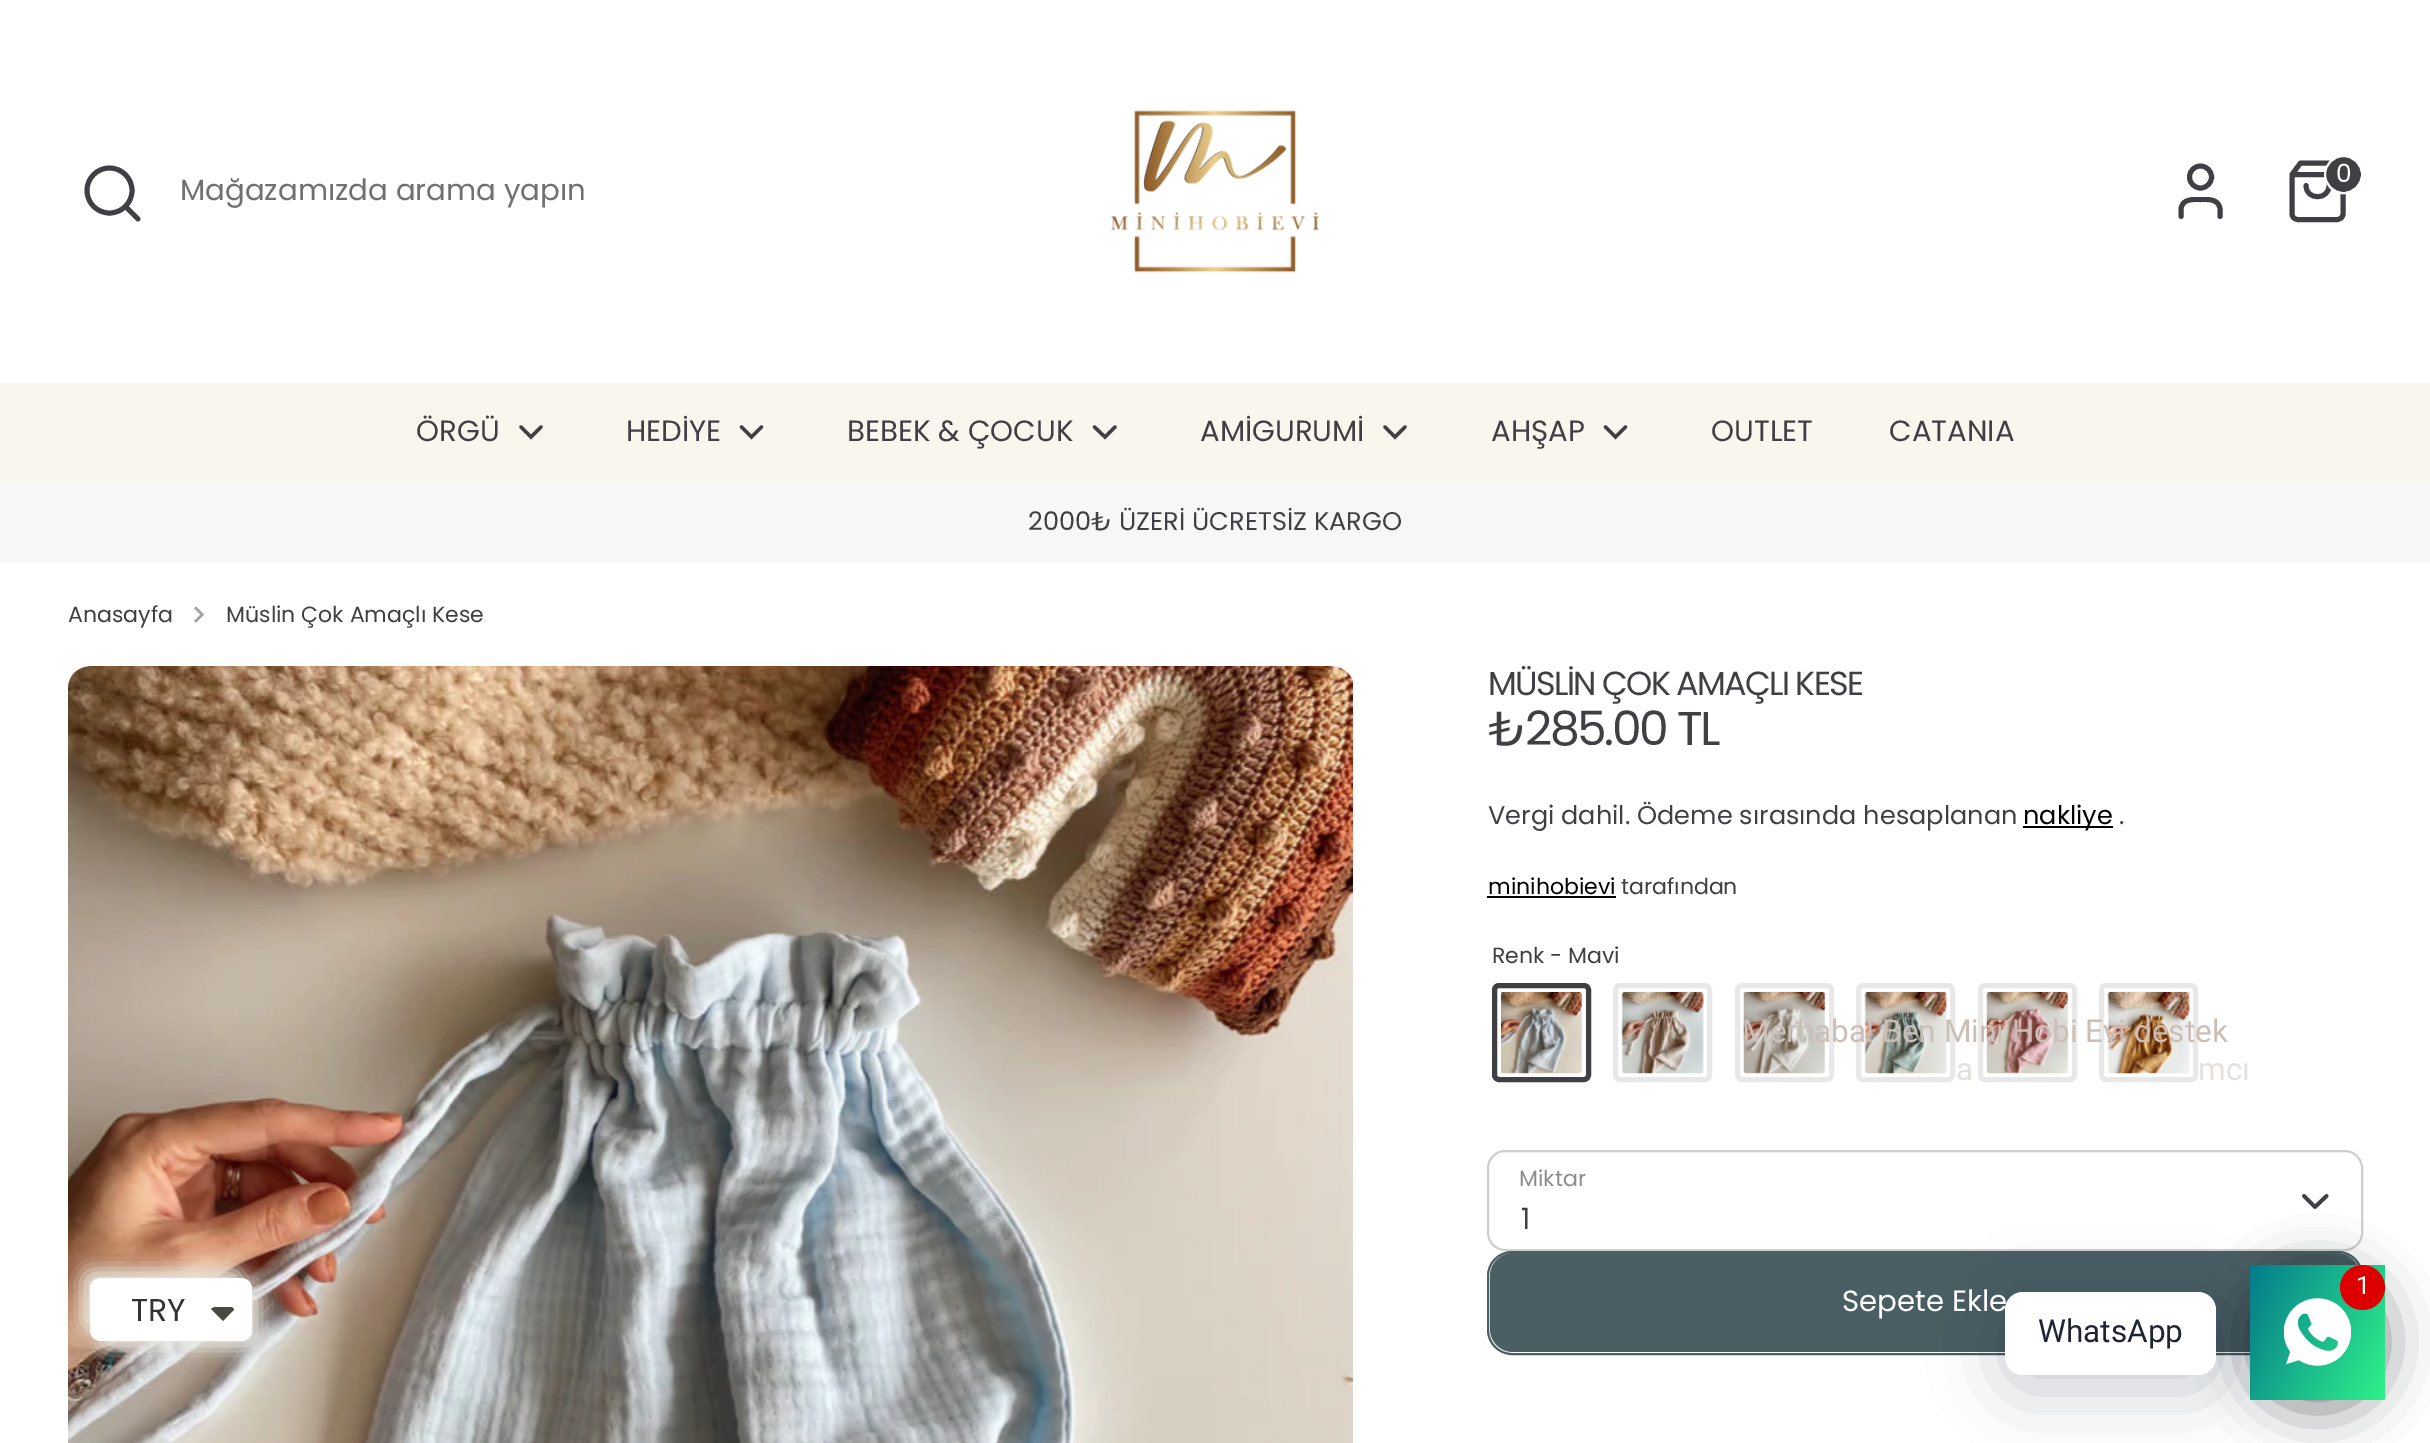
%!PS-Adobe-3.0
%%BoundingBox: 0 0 2430 1443
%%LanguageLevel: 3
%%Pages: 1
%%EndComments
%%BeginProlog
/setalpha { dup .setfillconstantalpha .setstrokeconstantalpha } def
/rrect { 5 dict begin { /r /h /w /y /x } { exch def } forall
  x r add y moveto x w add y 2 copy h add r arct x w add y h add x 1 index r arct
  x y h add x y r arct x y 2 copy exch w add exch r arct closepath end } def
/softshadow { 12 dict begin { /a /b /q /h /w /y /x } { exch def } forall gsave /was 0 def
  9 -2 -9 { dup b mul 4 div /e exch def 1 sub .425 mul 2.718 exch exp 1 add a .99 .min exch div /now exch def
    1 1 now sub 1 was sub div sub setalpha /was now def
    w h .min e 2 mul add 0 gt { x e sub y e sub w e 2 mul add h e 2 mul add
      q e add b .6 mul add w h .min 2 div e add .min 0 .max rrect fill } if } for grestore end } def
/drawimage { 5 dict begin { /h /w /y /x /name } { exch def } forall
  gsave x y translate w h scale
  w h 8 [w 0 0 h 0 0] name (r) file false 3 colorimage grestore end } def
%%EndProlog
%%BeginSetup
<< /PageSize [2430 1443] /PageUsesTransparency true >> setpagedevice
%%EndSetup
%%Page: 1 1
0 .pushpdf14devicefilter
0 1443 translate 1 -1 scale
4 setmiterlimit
1 setgray
0 0 2430 1443 rectfill
(images/1.raw) 1110 110 210 163 drawimage
0.255 0.247 0.263 setrgbcolor
4.9 setlinewidth
1 setlinecap
1 setlinejoin
newpath 2220 216.5 moveto 2220 208.5 lineto 2218 198.5 2208.5 199.5 2200.5 199.5 curveto 2192.5 199.5 2183 198.5 2181 208.5 curveto 2181 216.5 lineto stroke
0 setlinecap
0 setlinejoin
newpath 2200.5 177 11 0 360 arc closepath stroke
1 setlinecap
1 setlinejoin
newpath 2300.5 163 moveto 2292 174.5 lineto 2292 214 lineto 2292 217 2294.5 219.5 2298 219.5 curveto 2337 219.5 lineto 2340.5 219.5 2343 217 2343 214 curveto 2343 174.5 lineto 2334.5 163 lineto closepath 2292 174.5 moveto 2343 174.5 lineto 2329 185.5 moveto 2329 200.5 2306 200.5 2306 185.5 curveto stroke
newpath 2343.5 174.5 18.5 0 360 arc closepath gsave fill grestore
1 setgray
2 setlinewidth
0 setlinecap
0 setlinejoin
stroke
0.255 0.247 0.263 setrgbcolor
4.9 setlinewidth
newpath 109.5 190.5 22.5 0 360 arc closepath stroke
1 setlinecap
1 setlinejoin
newpath 138 219 moveto 125.5 206.5 lineto stroke
0.976 0.965 0.933 setrgbcolor
0 383 2430 99 rectfill
0.255 0.247 0.263 setrgbcolor
3.4 setlinewidth
0 setlinejoin
newpath 521 427 moveto 531 437 lineto 541 427 lineto stroke
newpath 741.5 427 moveto 751.5 437 lineto 761.5 427 lineto stroke
newpath 1094.5 427 moveto 1105 437 lineto 1115 427 lineto stroke
newpath 1385 427 moveto 1395 437 lineto 1405 427 lineto stroke
newpath 1605.5 427 moveto 1615.5 437 lineto 1625.5 427 lineto stroke
0.969 setgray
0 482 2430 81 rectfill
(images/2.raw) 194 606 10 17 drawimage
(images/3.raw) 68 666 1285 777 drawimage
0 setgray
2023 826 90 2 rectfill
1487 896 129 2 rectfill
0.255 0.247 0.263 setrgbcolor
5 setlinewidth
0 setlinecap
1494.5 985.5 94 94 4.5 rrect stroke
(images/4.raw) 1501 992 82 82 drawimage
0.91 setgray
1615.5 985.5 94 94 4.5 rrect stroke
(images/5.raw) 1621 992 83 82 drawimage
1737.5 985.5 94 94 4.5 rrect stroke
(images/6.raw) 1743 992 83 82 drawimage
1858.5 985.5 94 94 4.5 rrect stroke
(images/7.raw) 1864 992 83 82 drawimage
1980.5 985.5 94 94 4.5 rrect stroke
(images/8.raw) 1986 992 83 82 drawimage
2101.5 985.5 94 94 4.5 rrect stroke
(images/9.raw) 2107 992 83 82 drawimage
0.816 0.812 0.816 setrgbcolor
2 setlinewidth
1488 1151 874 99 17 rrect stroke
0.255 0.247 0.263 setrgbcolor
3.8 setlinewidth
1 setlinecap
1 setlinejoin
newpath 2304 1196 moveto 2315 1207 lineto 2326.5 1196 lineto stroke
0.29 0.373 0.388 setrgbcolor
2 setlinewidth
0 setlinecap
0 setlinejoin
1488 1252 874 102 24 rrect stroke
1490 1253 870 99 23 rrect fill
0.91 0.91 0.886 setrgbcolor
81 1269 162 63 11 10 1 softshadow
99 1287 162 63 11 10 1 softshadow
1 setgray
90 1278 162 63 11 rrect fill
0.278 0.286 0.259 setrgbcolor
newpath 211 1309 moveto 212 1308.5 213 1307.5 214.5 1307 curveto 231 1307 lineto 232.5 1307.5 233.5 1308.5 234 1309.5 curveto 223 1321 lineto closepath fill
0.008 0.024 0.063 setrgbcolor
2250 1274 135 135 67.5 27 0.5 softshadow
gsave newpath 2250 1265 moveto 2385 1265 lineto 2385 1400 lineto 2250 1400 lineto closepath clip newpath
<< /ShadingType 2 /ColorSpace /DeviceRGB /Coords [2236 1294 2399 1370] /Extend [true true] /Function << /FunctionType 2 /Domain [0 1] /C0 [0.016 0.486 0.553] /C1 [0.184 0.949 0.537] /N 1 >> >> shfill grestore
gsave
newpath 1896 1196 moveto 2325 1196 lineto 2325 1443 lineto 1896 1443 lineto closepath 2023 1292 moveto 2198 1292 lineto 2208 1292 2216 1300 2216 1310 curveto 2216 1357 lineto 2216 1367 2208 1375 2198 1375 curveto 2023 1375 lineto 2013 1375 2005 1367 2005 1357 curveto 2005 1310 lineto 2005 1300 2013 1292 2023 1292 curveto closepath eoclip newpath
0 0.071 0.18 setrgbcolor
2005 1305 211 83 18 36 0.24 softshadow
grestore
(images/10.raw) 2284 1298 67 68 drawimage
0.867 0 0 setrgbcolor
newpath 2362.5 1287.5 22.5 0 360 arc closepath fill
1 setgray
2005 1292 211 83 18 rrect fill
/Poppins-Regular [25 0 0 -25 0 0] selectfont
2336 182 moveto (0) show
/Poppins-Regular [29.25 0 0 -29.25 0 0] selectfont
0.443 0.435 0.447 setrgbcolor
180 200 moveto (Mağazamızda arama yapın) show
0.255 0.247 0.263 setrgbcolor
416 441 moveto (ÖRGÜ) show
626 441 moveto (HEDİYE) show
847 441 moveto (BEBEK & ÇOCUK) show
1200 441 moveto (AMİGURUMİ) show
1491 441 moveto (AHŞAP) show
1711 441 moveto (OUTLET) show
1889 441 moveto (CATANIA) show
/Poppins-Regular [25.6 0 0 -25.6 0 0] selectfont
1028 530 moveto (2000₺ ÜZERİ ÜCRETSİZ KARGO) show
/Poppins-Regular [22 0 0 -22 0 0] selectfont
68 622 moveto (Anasayfa) show
226 622 moveto (Müslin Çok Amaçlı Kese) show
/Poppins-Regular [33.4 0 0 -33.4 0 0] selectfont
1488 695 moveto -1.7 0 (MÜSLİN ÇOK AMAÇLI KESE) ashow
1 setgray
1523 665 6 1 rectfill
/Poppins-Regular [47.25 0 0 -47.25 0 0] selectfont
0.255 0.247 0.263 setrgbcolor
1488 745 moveto -2.4 0 (₺285.00 TL) ashow
/Poppins-Regular [25.6 0 0 -25.6 0 0] selectfont
1488 824 moveto (Vergi dahil. Ödeme sırasında hesaplanan) show
0 setgray
2023 824 moveto (nakliye) show
0.255 0.247 0.263 setrgbcolor
2119 824 moveto (.) show
/Poppins-Regular [22 0 0 -22 0 0] selectfont
0 setgray
1488 894 moveto (minihobievi) show
0.255 0.247 0.263 setrgbcolor
1621 894 moveto (tarafından) show
1492 963 moveto (Renk - Mavi) show
0.553 0.549 0.557 setrgbcolor
1519 1186 moveto (Miktar) show
/Poppins-Regular [29.25 0 0 -29.25 0 0] selectfont
0.255 0.247 0.263 setrgbcolor
1521 1229 moveto (1) show
1 setgray
1842 1311 moveto (Sepete Ekle) show
/Poppins-Regular [31.5 0 0 -31.5 0 0] selectfont
0.2 setgray
131 1321 moveto (TRY) show
/Roboto-Regular [31.5 0 0 -31.5 0 0] selectfont
0.796 0.745 0.714 setrgbcolor
1742 1042 moveto (Merhaba! Ben Mini Hobi Evi destek) show
0.894 0.878 0.863 setrgbcolor
1956 1080 moveto (a) show
2198 1080 moveto (mcı) show
/Roboto-Regular [25 0 0 -25 0 0] selectfont
1 setgray
2356 1294 moveto (1) show
/Roboto-Regular [31.5 0 0 -31.5 0 0] selectfont
0.118 0.141 0.2 setrgbcolor
2038 1342 moveto (WhatsApp) show
.poppdf14devicefilter showpage
%%EOF
